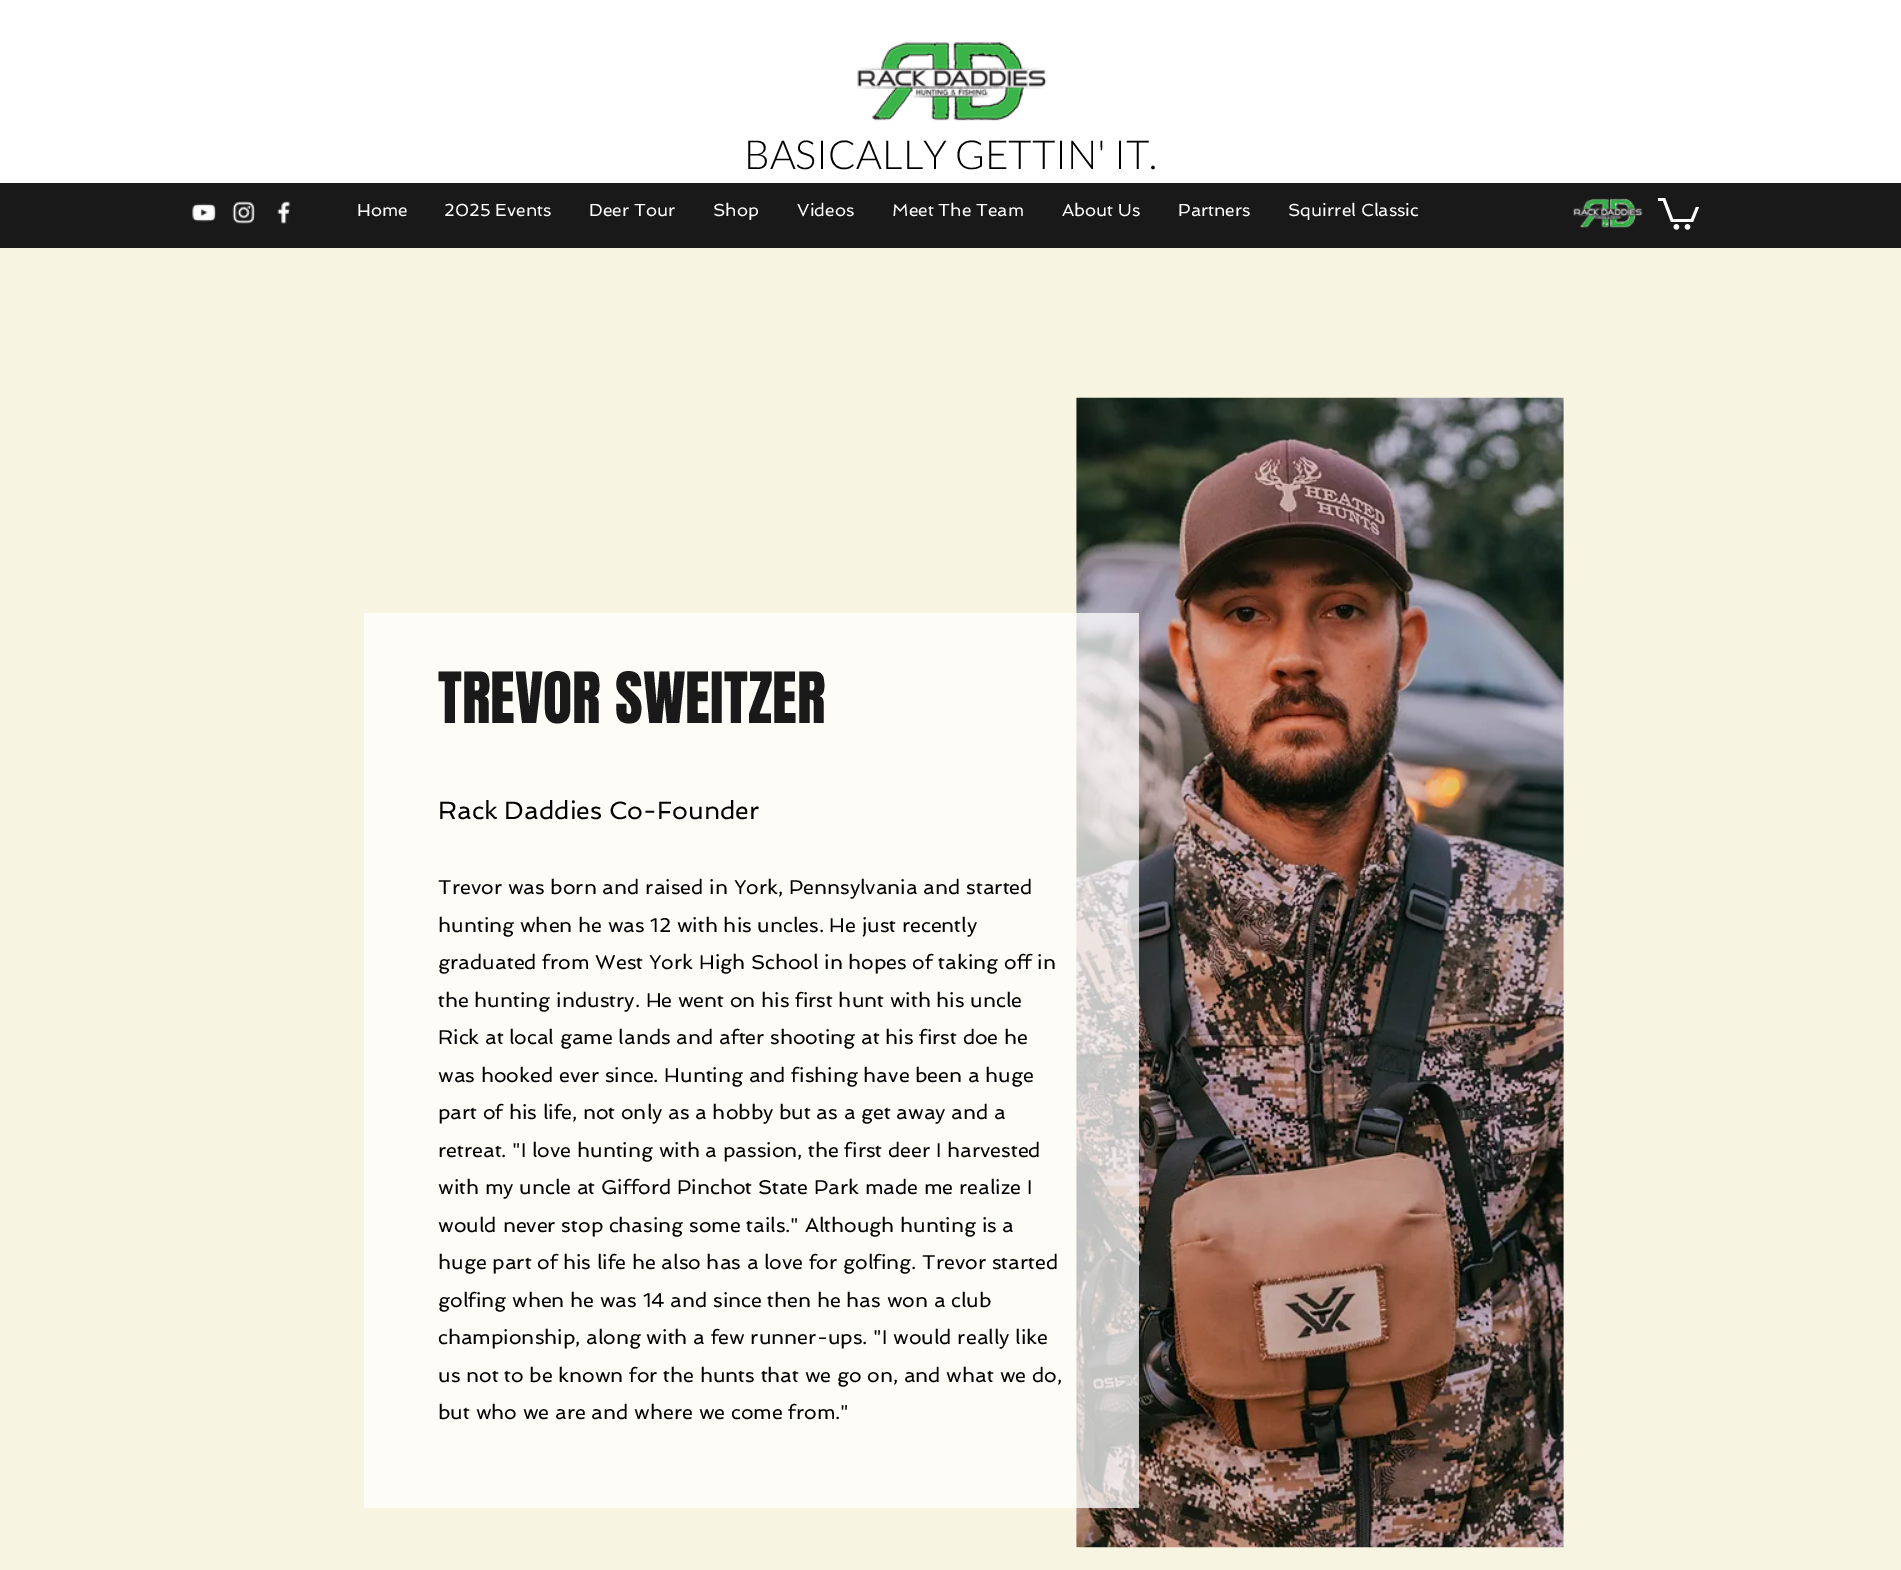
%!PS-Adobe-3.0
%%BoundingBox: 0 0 1901 1570
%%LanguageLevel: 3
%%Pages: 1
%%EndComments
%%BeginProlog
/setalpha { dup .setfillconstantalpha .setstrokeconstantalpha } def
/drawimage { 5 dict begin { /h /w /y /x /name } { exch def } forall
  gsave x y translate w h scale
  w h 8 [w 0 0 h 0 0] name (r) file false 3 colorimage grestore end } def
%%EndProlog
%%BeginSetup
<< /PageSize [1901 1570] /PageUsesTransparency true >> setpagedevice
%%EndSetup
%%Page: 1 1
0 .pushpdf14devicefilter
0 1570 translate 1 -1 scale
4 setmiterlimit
1 setgray
0 0 1901 1570 rectfill
(images/1.raw) 857 41 190 80 drawimage
0.098 setgray
0 183 1901 65 rectfill
(images/2.raw) 192 203 24 19 drawimage
(images/3.raw) 232 201 23 23 drawimage
(images/4.raw) 277 201 14 23 drawimage
(images/5.raw) 1573 198 70 30 drawimage
1 setgray
newpath 1699 207 moveto 1693 222 lineto 1671 222 lineto 1663 201 lineto 1658 201 lineto 1658 198 lineto 1665 198 lineto 1673 219 lineto 1691 219 lineto 1696 207 lineto fill
newpath 1687.5 226.9 2.7 0 360 arc closepath fill
newpath 1676.4 226.9 2.7 0 360 arc closepath fill
0.969 0.961 0.882 setrgbcolor
0 248 1901 1322 rectfill
(images/6.raw) 1076 397 488 1151 drawimage
0.75 setalpha
1 setgray
364 613 775 895 rectfill
/Lato-Light [40 0 0 -40 0 0] selectfont
1 setalpha
0 setgray
744 169 moveto (BASICALLY GETTIN' IT.) show
/Spinnaker-Regular [17.5 0 0 -17.5 0 0] selectfont
1 setgray
357 216 moveto (Home) show
444 216 moveto (2025 Events) show
589 216 moveto (Deer Tour) show
713 216 moveto (Shop) show
797 216 moveto (Videos) show
892 216 moveto (Meet The Team) show
1062 216 moveto (About Us) show
1178 216 moveto (Partners) show
1288 216 moveto (Squirrel Classic) show
/Anton-Regular [60 0 0 -60 0 0] selectfont
0.098 setgray
438 723 moveto (TREVOR SWEITZER) show
/Spinnaker-Regular [25 0 0 -25 0 0] selectfont
0 setgray
438 819 moveto (Rack Daddies Co-Founder) show
/Spinnaker-Regular [20 0 0 -20 0 0] selectfont
438 894 moveto (Trevor was born and raised in York, Pennsylvania and started) show
438 932 moveto (hunting when he was 12 with his uncles. He just recently) show
438 969 moveto (graduated from West York High School in hopes of taking off in) show
438 1007 moveto (the hunting industry. He went on his first hunt with his uncle) show
438 1044 moveto (Rick at local game lands and after shooting at his first doe he) show
438 1082 moveto (was hooked ever since. Hunting and fishing have been a huge) show
438 1119 moveto (part of his life, not only as a hobby but as a get away and a) show
438 1157 moveto (retreat. "I love hunting with a passion, the first deer I harvested) show
438 1194 moveto (with my uncle at Gifford Pinchot State Park made me realize I) show
438 1232 moveto (would never stop chasing some tails." Although hunting is a) show
438 1269 moveto (huge part of his life he also has a love for golfing. Trevor started) show
438 1307 moveto (golfing when he was 14 and since then he has won a club) show
438 1344 moveto (championship, along with a few runner-ups. "I would really like) show
438 1382 moveto (us not to be known for the hunts that we go on, and what we do,) show
438 1419 moveto (but who we are and where we come from.") show
.poppdf14devicefilter showpage
%%EOF
